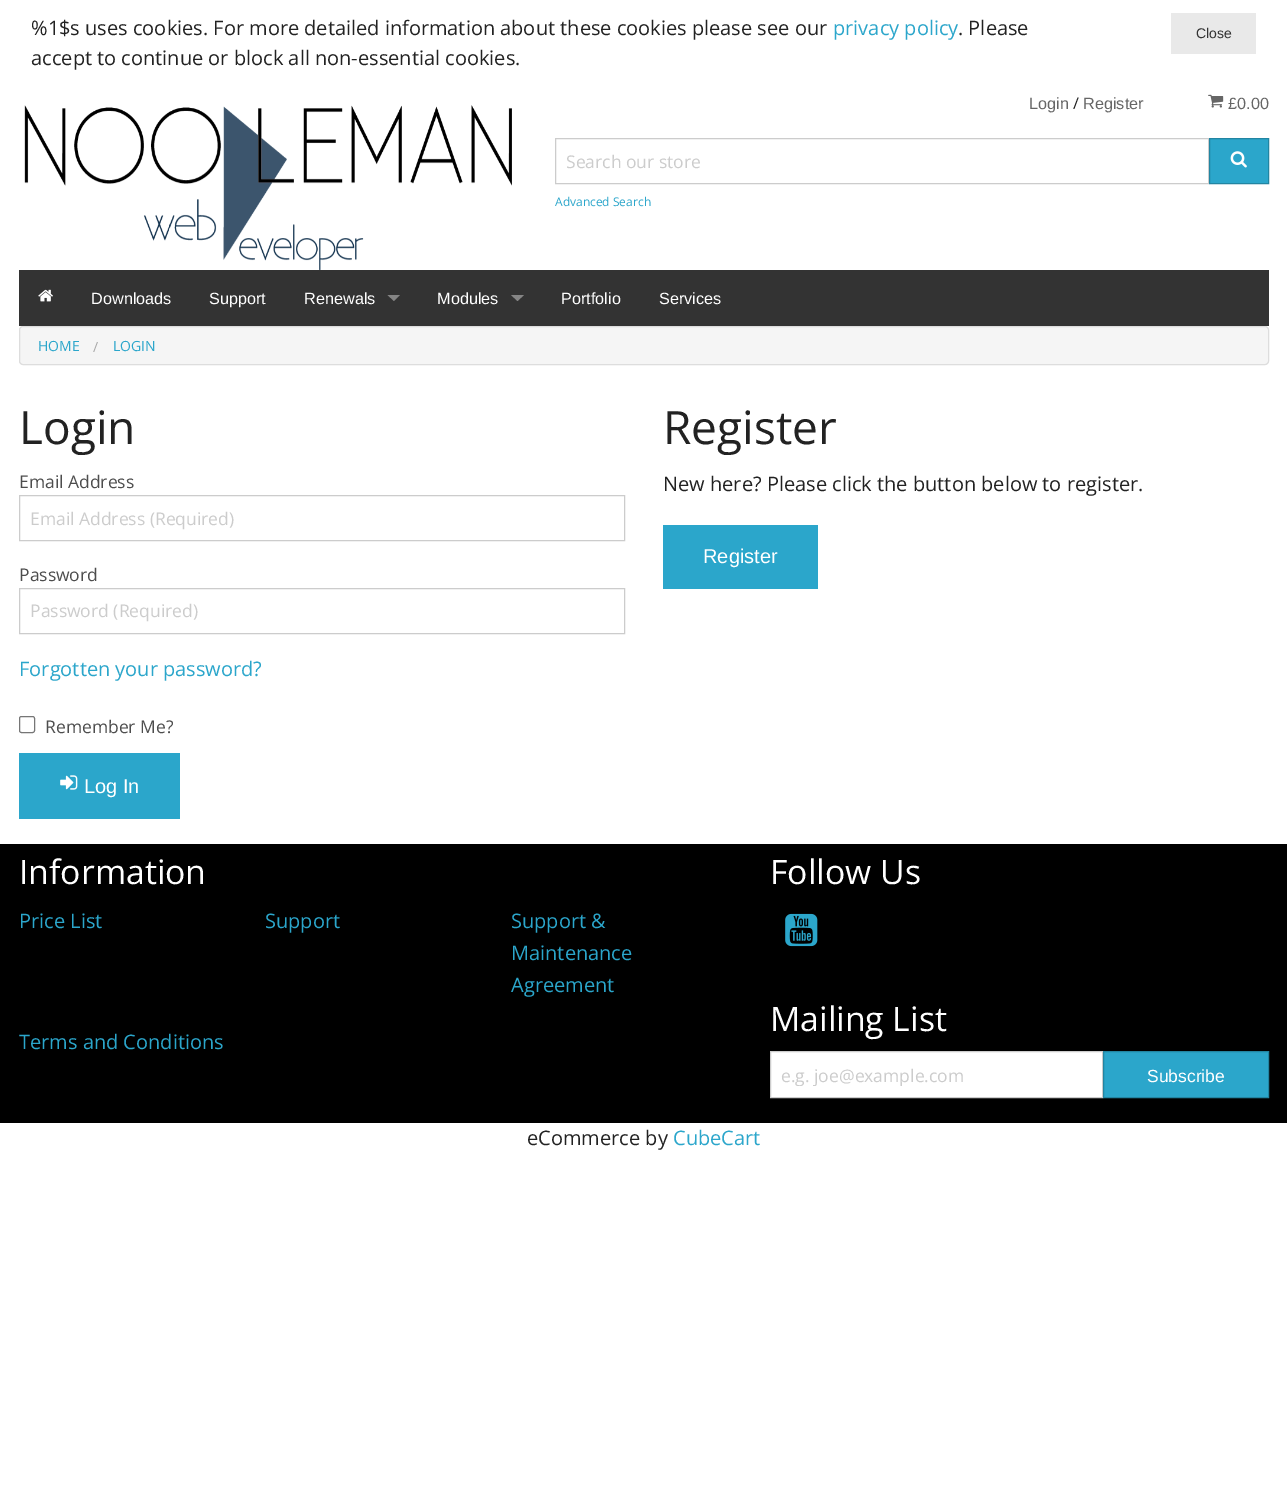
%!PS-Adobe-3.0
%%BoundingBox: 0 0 1287 1501
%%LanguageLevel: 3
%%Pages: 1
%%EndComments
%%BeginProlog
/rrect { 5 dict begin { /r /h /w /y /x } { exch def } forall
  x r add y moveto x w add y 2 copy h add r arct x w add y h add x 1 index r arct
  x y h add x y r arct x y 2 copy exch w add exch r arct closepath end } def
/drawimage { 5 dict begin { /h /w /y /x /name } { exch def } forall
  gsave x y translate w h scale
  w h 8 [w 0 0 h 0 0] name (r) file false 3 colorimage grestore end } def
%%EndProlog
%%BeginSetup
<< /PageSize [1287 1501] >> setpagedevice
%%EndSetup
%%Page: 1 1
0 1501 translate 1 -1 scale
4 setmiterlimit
1 setgray
0 0 1287 1501 rectfill
0.914 setgray
1171 13 85 41 rectfill
(images/1.raw) 24 105 488 165 drawimage
(images/2.raw) 1208 94 16 14 drawimage
0.8 setgray
555.5 138.5 653 45 rectstroke
0.169 0.651 0.796 setrgbcolor
newpath 1209.5 138.5 moveto 1268.5 138.5 lineto 1268.5 183.5 lineto 1209.5 183.5 lineto closepath gsave fill grestore
0.133 0.522 0.635 setrgbcolor
stroke
(images/3.raw) 1230 151 17 17 drawimage
0.2 setgray
19 270 1250 56 rectfill
(images/4.raw) 38 289 15 13 drawimage
0.522 setgray
newpath 387.5 295 moveto 400 295 lineto 394 301 lineto closepath fill
newpath 511 295 moveto 524 295 lineto 517.5 301 lineto closepath fill
0.961 setgray
19.5 326.5 1249 38 3.5 rrect gsave fill grestore
0.867 setgray
stroke
0.8 setgray
19.5 495.5 605 45 rectstroke
19.5 588.5 605 45 rectstroke
0.463 setgray
19.5 716.5 15 16 2 rrect stroke
0.169 0.651 0.796 setrgbcolor
19 753 161 66 rectfill
(images/5.raw) 60 775 18 15 drawimage
663 525 155 64 rectfill
0 setgray
0 844 1287 279 rectfill
(images/6.raw) 785 913 33 34 drawimage
1 setgray
newpath 770.5 1051.5 moveto 1102.5 1051.5 lineto 1102.5 1097.5 lineto 770.5 1097.5 lineto closepath gsave fill grestore
0.8 setgray
stroke
0.169 0.651 0.796 setrgbcolor
newpath 1103.5 1051.5 moveto 1268.5 1051.5 lineto 1268.5 1097.5 lineto 1103.5 1097.5 lineto closepath gsave fill grestore
0.133 0.522 0.635 setrgbcolor
stroke
/OpenSans-Regular [20 0 0 -20 0 0] selectfont
0.133 setgray
31 35 moveto (%1$s uses cookies. For more detailed information about these cookies please see our) show
0.169 0.651 0.796 setrgbcolor
833 35 moveto (privacy policy) show
0.133 setgray
958 35 moveto (. Please) show
31 65 moveto (accept to continue or block all non-essential cookies.) show
/LiberationSans-Regular [14 0 0 -14 0 0] selectfont
0.2 setgray
1196 38 moveto (Close) show
/LiberationSans-Regular [16.25 0 0 -16.25 0 0] selectfont
0.4 setgray
1029 109 moveto (Login) show
/OpenSans-Regular [16.25 0 0 -16.25 0 0] selectfont
0.133 setgray
1073 109 moveto (/) show
/LiberationSans-Regular [16.25 0 0 -16.25 0 0] selectfont
0.4 setgray
1083 109 moveto (Register) show
1228 109 moveto (£0.00) show
/OpenSans-Regular [17.5 0 0 -17.5 0 0] selectfont
0.8 setgray
566 168 moveto (Search our store) show
/OpenSans-Regular [12 0 0 -12 0 0] selectfont
0.169 0.651 0.796 setrgbcolor
555 206 moveto (Advanced Search) show
/LiberationSans-Regular [16.25 0 0 -16.25 0 0] selectfont
1 setgray
91 304 moveto (Downloads) show
209 304 moveto (Support) show
304 304 moveto (Renewals) show
437 304 moveto (Modules) show
561 304 moveto (Portfolio) show
659 304 moveto (Services) show
/OpenSans-Regular [14 0 0 -14 0 0] selectfont
0.169 0.651 0.796 setrgbcolor
38 351 moveto (HOME) show
0.667 setgray
93 352 moveto (/) show
0.169 0.651 0.796 setrgbcolor
113 351 moveto (LOGIN) show
/OpenSans-Regular [46 0 0 -46 0 0] selectfont
0.133 setgray
19 444 moveto (Login) show
/OpenSans-Regular [17.5 0 0 -17.5 0 0] selectfont
0.302 setgray
19 488 moveto (Email Address) show
0.8 setgray
30 525 moveto (Email Address \(Required\)) show
0.302 setgray
19 581 moveto (Password) show
0.8 setgray
30 617 moveto (Password \(Required\)) show
/OpenSans-Regular [20 0 0 -20 0 0] selectfont
0.169 0.651 0.796 setrgbcolor
19 676 moveto (Forgotten your password?) show
/OpenSans-Regular [17.5 0 0 -17.5 0 0] selectfont
0.302 setgray
45 733 moveto (Remember Me?) show
/LiberationSans-Regular [20 0 0 -20 0 0] selectfont
1 setgray
84 793 moveto (Log In) show
/OpenSans-Regular [46 0 0 -46 0 0] selectfont
0.133 setgray
663 444 moveto (Register) show
/OpenSans-Regular [20 0 0 -20 0 0] selectfont
663 491 moveto (New here? Please click the button below to register.) show
/LiberationSans-Regular [20 0 0 -20 0 0] selectfont
1 setgray
703 563 moveto (Register) show
/OpenSans-Regular [33.75 0 0 -33.75 0 0] selectfont
19 884 moveto (Information) show
/OpenSans-Regular [20 0 0 -20 0 0] selectfont
0.169 0.651 0.796 setrgbcolor
19 928 moveto (Price List) show
265 928 moveto (Support) show
511 928 moveto (Support &) show
511 960 moveto (Maintenance) show
511 992 moveto (Agreement) show
19 1049 moveto (Terms and Conditions) show
/OpenSans-Regular [33.75 0 0 -33.75 0 0] selectfont
1 setgray
770 884 moveto (Follow Us) show
770 1031 moveto (Mailing List) show
gsave
781 1063 310 23 rectclip
/OpenSans-Regular [17.5 0 0 -17.5 0 0] selectfont
0.8 setgray
781 1082 moveto (e.g. joe@example.com) show
grestore
/LiberationSans-Regular [17.5 0 0 -17.5 0 0] selectfont
1147 1082 moveto (Subscribe) show
/OpenSans-Regular [20 0 0 -20 0 0] selectfont
0.133 setgray
527 1145 moveto (eCommerce by) show
0.169 0.651 0.796 setrgbcolor
673 1145 moveto (CubeCart) show
showpage
%%EOF
